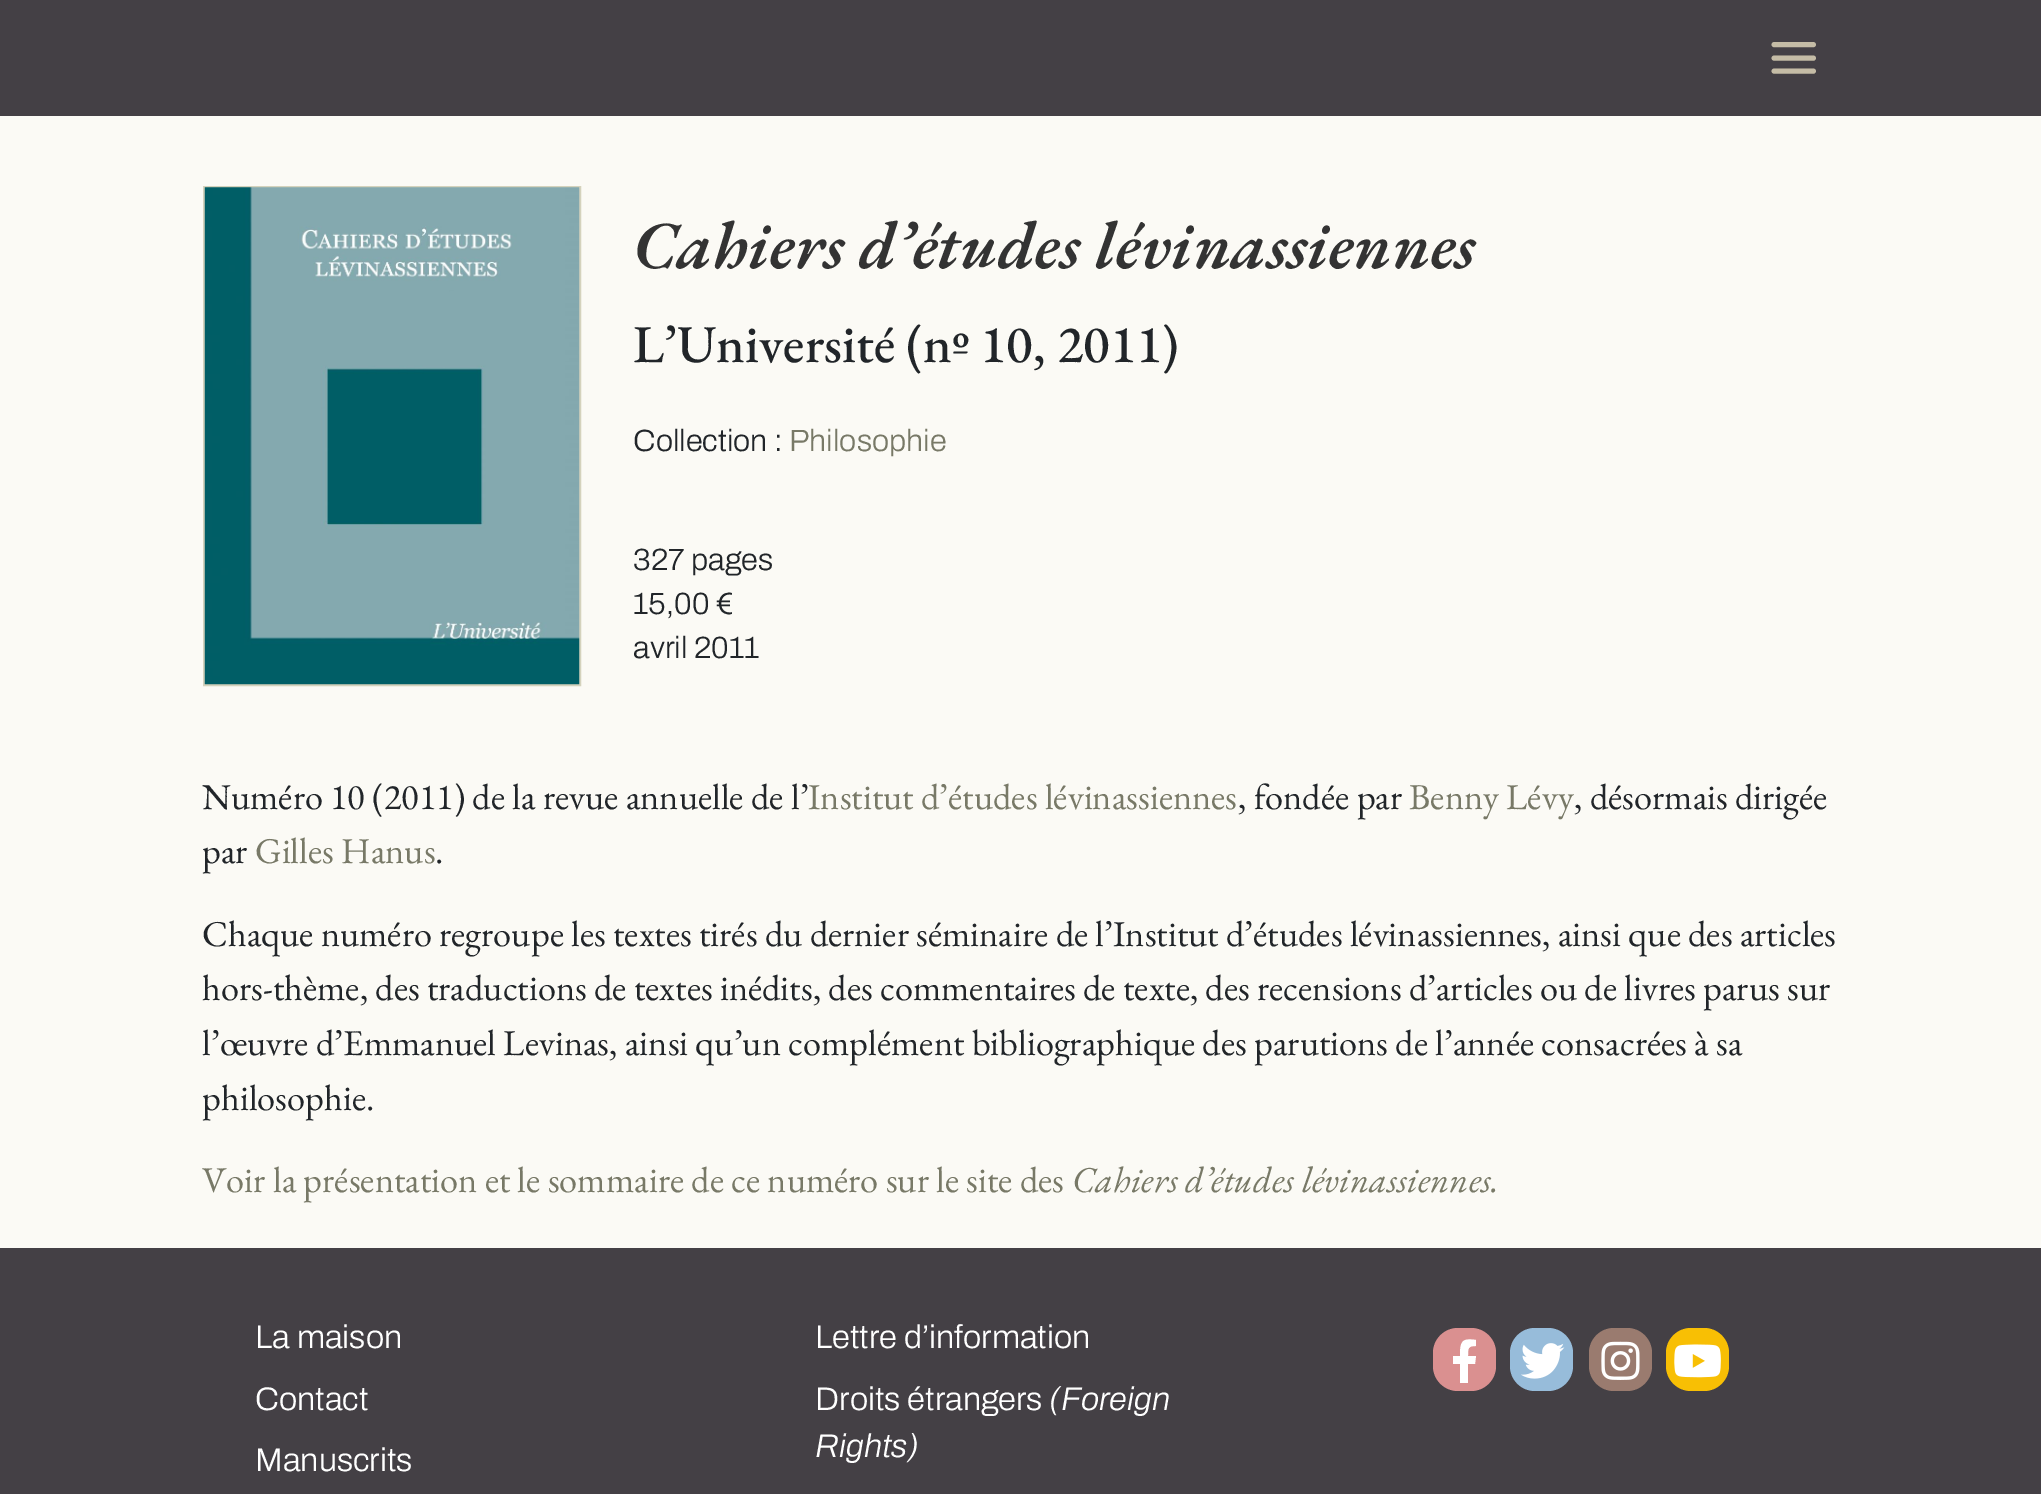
%!PS-Adobe-3.0
%%BoundingBox: 0 0 2041 1494
%%LanguageLevel: 3
%%Pages: 1
%%EndComments
%%BeginProlog
/rrect { 5 dict begin { /r /h /w /y /x } { exch def } forall
  x r add y moveto x w add y 2 copy h add r arct x w add y h add x 1 index r arct
  x y h add x y r arct x y 2 copy exch w add exch r arct closepath end } def
/drawimage { 5 dict begin { /h /w /y /x /name } { exch def } forall
  gsave x y translate w h scale
  w h 8 [w 0 0 h 0 0] name (r) file false 3 colorimage grestore end } def
%%EndProlog
%%BeginSetup
<< /PageSize [2041 1494] >> setpagedevice
%%EndSetup
%%Page: 1 1
0 1494 translate 1 -1 scale
4 setmiterlimit
0.984 0.98 0.961 setrgbcolor
0 0 2041 1494 rectfill
0.267 0.251 0.271 setrgbcolor
0 0 2041 116 rectfill
0.773 0.737 0.651 setrgbcolor
4.9 setlinewidth
1 setlinecap
newpath 1774 44.5 moveto 1813.5 44.5 lineto 1774 58 moveto 1813.5 58 lineto 1774 71 moveto 1813.5 71 lineto stroke
0.831 0.824 0.737 setrgbcolor
2 setlinewidth
0 setlinecap
204 187 376 498 rectstroke
(images/1.raw) 204 187 376 498 drawimage
0.267 0.251 0.271 setrgbcolor
0 1248 2041 246 rectfill
0.855 0.565 0.565 setrgbcolor
1433 1328 63 63 25 rrect fill
1 setgray
newpath 1475 1364 moveto 1468 1364 lineto 1468 1383 lineto 1460 1383 lineto 1460 1364 lineto 1453 1364 lineto 1453 1356 lineto 1460 1356 lineto 1460 1341 1462 1338 1476 1340 curveto 1476 1346 lineto 1468 1346 1468 1348 1468 1356 curveto 1476 1356 lineto closepath fill
0.592 0.737 0.855 setrgbcolor
1510 1328 63 63 25 rrect fill
(images/2.raw) 1521 1343 44 36 drawimage
0.604 0.482 0.435 setrgbcolor
1589 1328 63 63 25 rrect fill
(images/3.raw) 1601 1341 39 39 drawimage
0.973 0.749 0.016 setrgbcolor
1666 1328 63 63 25 rrect fill
(images/4.raw) 1674 1344 47 34 drawimage
/EBGaramond-SemiBoldItalic [67.25 0 0 -67.25 0 0] selectfont
0.2 setgray
633 268 moveto (Cahiers d’études lévinassiennes) show
/EBGaramond-Medium [53.25 0 0 -53.25 0 0] selectfont
0.129 0.145 0.161 setrgbcolor
633 362 moveto (L’Université \(nº 10, 2011\)) show
/Archivo-Light [30.75 0 0 -30.75 0 0] selectfont
633 451 moveto (Collection :) show
0.471 0.475 0.404 setrgbcolor
789 451 moveto (Philosophie) show
0.129 0.145 0.161 setrgbcolor
633 570 moveto (327 pages) show
633 614 moveto (15,00 €) show
633 658 moveto (avril 2011) show
/EBGaramond-Regular [36.4 0 0 -36.4 0 0] selectfont
202 809 moveto (Numéro 10 \(2011\) de la revue annuelle de l’) show
0.471 0.475 0.404 setrgbcolor
808 809 moveto (Institut d’études lévinassiennes) show
0.129 0.145 0.161 setrgbcolor
1238 809 moveto (, fondée par) show
0.471 0.475 0.404 setrgbcolor
1409 809 moveto (Benny Lévy) show
0.129 0.145 0.161 setrgbcolor
1574 809 moveto (, désormais dirigée) show
202 863 moveto (par) show
0.471 0.475 0.404 setrgbcolor
255 863 moveto (Gilles Hanus) show
0.129 0.145 0.161 setrgbcolor
435 863 moveto (.) show
202 946 moveto (Chaque numéro regroupe les textes tirés du dernier séminaire de l’Institut d’études lévinassiennes, ainsi que des articles) show
202 1000 moveto (hors-thème, des traductions de textes inédits, des commentaires de texte, des recensions d’articles ou de livres parus sur) show
202 1055 moveto (l’œuvre d’Emmanuel Levinas, ainsi qu’un complément bibliographique des parutions de l’année consacrées à sa) show
202 1110 moveto (philosophie.) show
0.471 0.475 0.404 setrgbcolor
202 1192 moveto (Voir la présentation et le sommaire de ce numéro sur le site des) show
/EBGaramond-Italic [36.4 0 0 -36.4 0 0] selectfont
1072 1192 moveto (Cahiers d’études lévinassiennes.) show
/Archivo-Light [32.75 0 0 -32.75 0 0] selectfont
1 setgray
255 1348 moveto (La maison) show
255 1410 moveto (Contact) show
255 1471 moveto (Manuscrits) show
815 1348 moveto (Lettre d’information) show
815 1410 moveto (Droits étrangers) show
/Archivo-LightItalic [32.75 0 0 -32.75 0 0] selectfont
1049 1410 moveto (\(Foreign) show
815 1457 moveto (Rights\)) show
showpage
%%EOF
